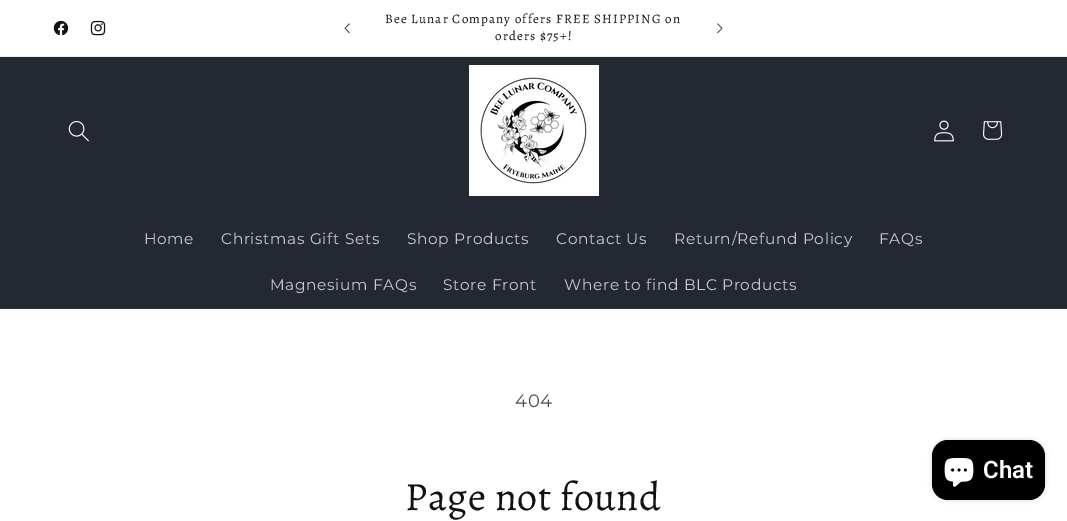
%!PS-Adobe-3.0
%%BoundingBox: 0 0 1067 521
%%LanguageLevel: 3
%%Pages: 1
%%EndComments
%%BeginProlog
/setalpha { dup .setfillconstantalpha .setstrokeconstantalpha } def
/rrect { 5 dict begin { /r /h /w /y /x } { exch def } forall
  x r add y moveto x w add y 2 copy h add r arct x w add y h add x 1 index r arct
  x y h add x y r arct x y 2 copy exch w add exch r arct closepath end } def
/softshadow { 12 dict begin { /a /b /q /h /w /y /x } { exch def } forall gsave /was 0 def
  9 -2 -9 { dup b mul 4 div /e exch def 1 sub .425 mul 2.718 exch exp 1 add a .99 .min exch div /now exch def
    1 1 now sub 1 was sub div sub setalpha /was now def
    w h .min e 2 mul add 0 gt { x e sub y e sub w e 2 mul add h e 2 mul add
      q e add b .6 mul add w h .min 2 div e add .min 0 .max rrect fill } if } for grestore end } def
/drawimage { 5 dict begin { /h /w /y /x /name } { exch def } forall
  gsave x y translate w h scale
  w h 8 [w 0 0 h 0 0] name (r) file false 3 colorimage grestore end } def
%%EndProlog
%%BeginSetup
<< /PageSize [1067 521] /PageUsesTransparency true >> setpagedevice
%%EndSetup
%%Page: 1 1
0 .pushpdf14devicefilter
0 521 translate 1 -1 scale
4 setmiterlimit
1 setgray
0 0 1067 521 rectfill
0.925 setgray
0 56 1067 1 rectfill
(images/1.raw) 53 20 16 16 drawimage
(images/2.raw) 90 20 16 16 drawimage
(images/3.raw) 344 23 6 11 drawimage
(images/4.raw) 717 23 6 11 drawimage
0.141 0.157 0.2 setrgbcolor
0 57 1067 251 rectfill
0.212 0.224 0.263 setrgbcolor
0 308 1067 1 rectfill
(images/5.raw) 68 120 21 22 drawimage
(images/6.raw) 469 65 130 131 drawimage
(images/7.raw) 934 120 20 22 drawimage
(images/8.raw) 983 121 20 19 drawimage
0 setgray
932 440 113 60 16 2.5 0.15 softshadow
932 440 113 60 16 rrect fill
(images/9.raw) 944 458 30 29 drawimage
/Alegreya-Regular [13 0 0 -13 0 0] selectfont
0.071 setgray
385 23 moveto 1.1 0 (Bee Lunar Company offers FREE SHIPPING on) ashow
495 40 moveto 1.1 0 (orders $75+!) ashow
/Montserrat-Regular [15.4 0 0 -15.4 0 0] selectfont
0.784 0.788 0.8 setrgbcolor
144 244 moveto 0.65 0 (Home) ashow
221 244 moveto 0.65 0 (Christmas Gift Sets) ashow
407 244 moveto 0.65 0 (Shop Products) ashow
556 244 moveto 0.65 0 (Contact Us) ashow
674 244 moveto 0.65 0 (Return/Refund Policy) ashow
879 244 moveto 0.65 0 (FAQs) ashow
270 290 moveto 0.65 0 (Magnesium FAQs) ashow
443 290 moveto 0.65 0 (Store Front) ashow
564 290 moveto 0.65 0 (Where to find BLC Products) ashow
/Montserrat-Regular [18 0 0 -18 0 0] selectfont
0.302 setgray
515 407 moveto 0.65 0 (404) ashow
/Alegreya-Regular [40 0 0 -40 0 0] selectfont
0.071 setgray
405 510 moveto 0.6 0 (Page not found) ashow
/Roboto-SemiBold [24 0 0 -24 0 0] selectfont
1 setgray
983 478 moveto (Chat) show
.poppdf14devicefilter showpage
%%EOF
